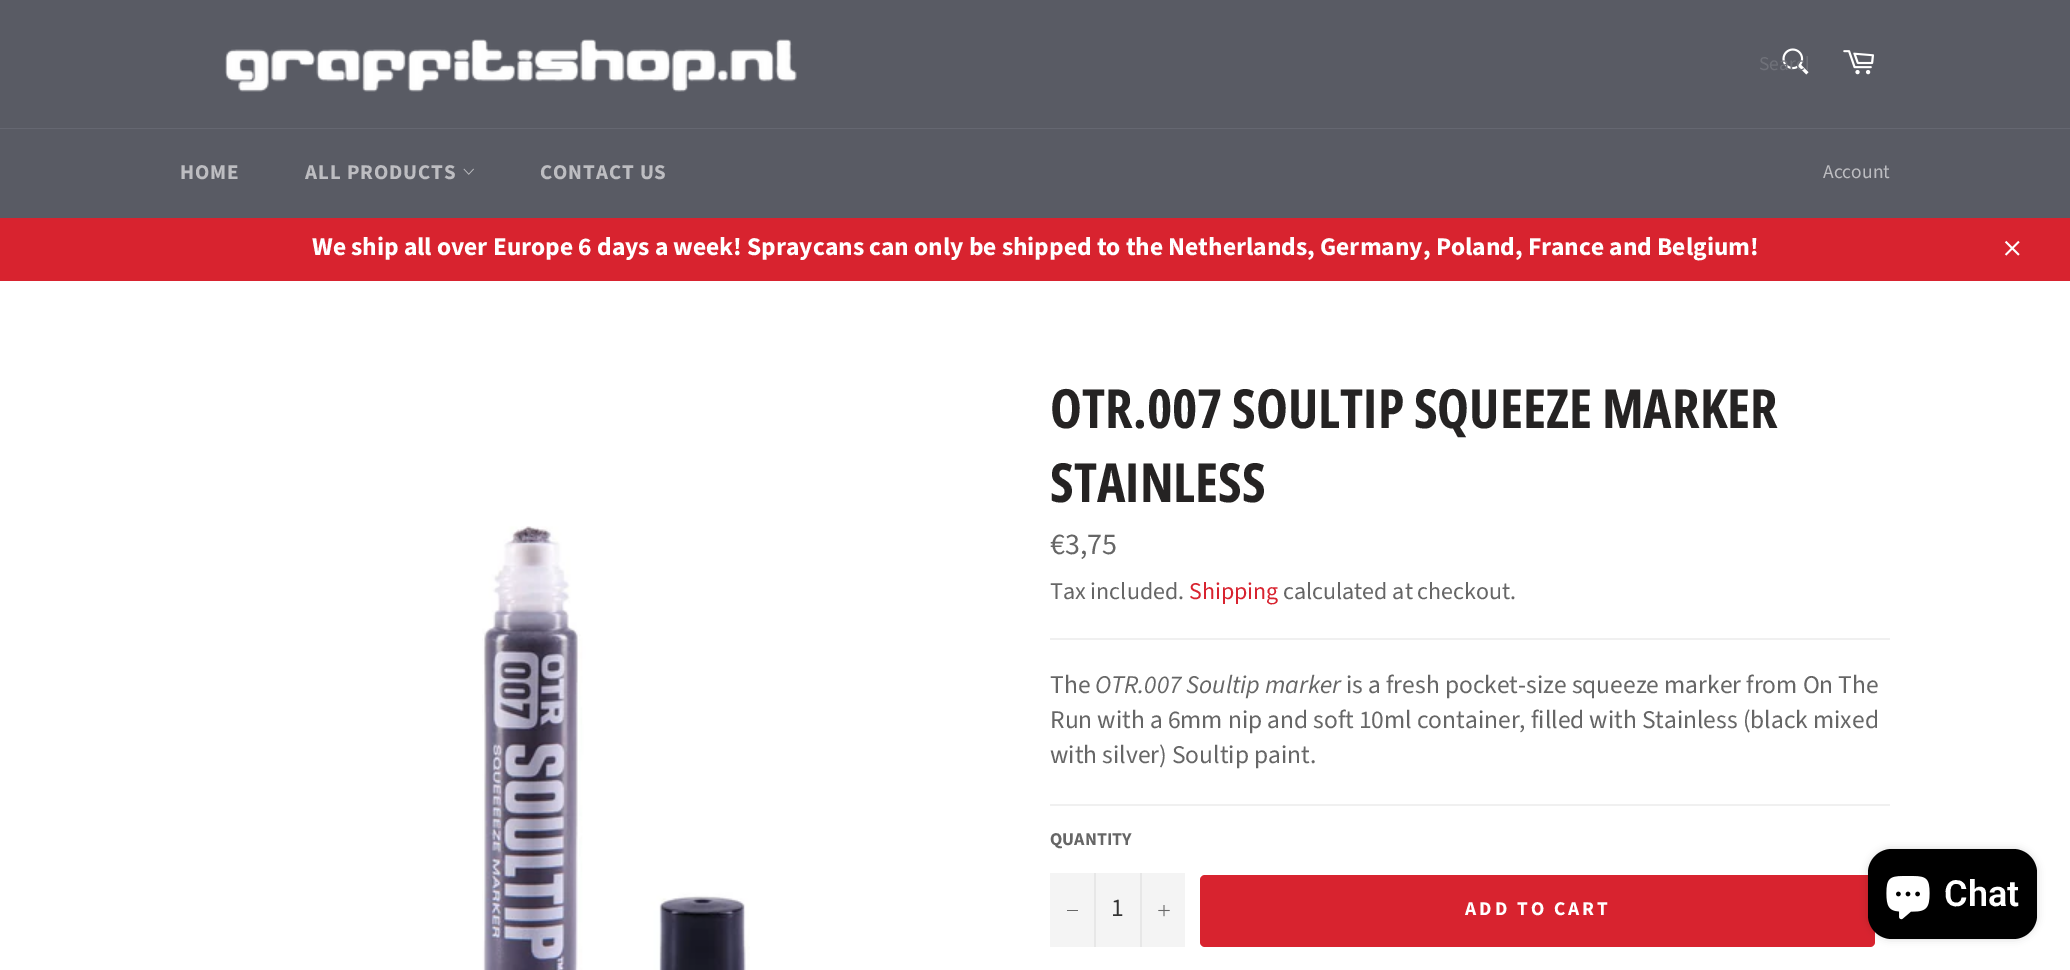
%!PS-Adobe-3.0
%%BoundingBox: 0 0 2070 970
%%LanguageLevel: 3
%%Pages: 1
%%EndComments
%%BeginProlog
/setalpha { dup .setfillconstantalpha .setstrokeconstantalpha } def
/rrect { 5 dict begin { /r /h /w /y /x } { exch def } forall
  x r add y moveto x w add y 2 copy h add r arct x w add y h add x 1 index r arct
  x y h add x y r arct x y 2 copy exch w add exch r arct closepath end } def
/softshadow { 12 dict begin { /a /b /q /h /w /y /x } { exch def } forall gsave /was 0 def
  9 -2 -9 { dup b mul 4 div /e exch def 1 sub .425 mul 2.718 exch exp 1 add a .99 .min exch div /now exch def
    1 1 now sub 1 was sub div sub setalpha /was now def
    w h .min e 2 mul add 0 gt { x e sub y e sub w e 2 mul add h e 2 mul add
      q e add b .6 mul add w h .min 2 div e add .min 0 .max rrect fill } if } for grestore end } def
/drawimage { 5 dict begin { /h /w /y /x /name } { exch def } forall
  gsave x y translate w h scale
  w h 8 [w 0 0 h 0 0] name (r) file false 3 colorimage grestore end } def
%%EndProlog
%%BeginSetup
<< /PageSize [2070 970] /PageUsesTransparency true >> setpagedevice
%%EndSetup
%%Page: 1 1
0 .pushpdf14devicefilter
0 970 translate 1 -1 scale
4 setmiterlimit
0.349 0.357 0.392 setrgbcolor
0 0 2070 970 rectfill
(images/1.raw) 225 39 572 53 drawimage
(images/2.raw) 1782 48 27 27 drawimage
(images/3.raw) 1843 50 31 25 drawimage
0.396 0.404 0.443 setrgbcolor
0 128 2070 1 rectfill
(images/4.raw) 463 168 11 7 drawimage
0.847 0.137 0.184 setrgbcolor
0 218 2070 63 rectfill
(images/5.raw) 2004 240 16 16 drawimage
1 setgray
0 281 2070 689 rectfill
(images/6.raw) 482 526 268 444 drawimage
0.941 setgray
1050 638 840 2 rectfill
1050 804 840 2 rectfill
0.957 setgray
1050 873 135 74 rectfill
0.906 setgray
1094 873 2 74 rectfill
0.4 setgray
1067 910 11 1 rectfill
0.906 setgray
1140 873 2 74 rectfill
(images/7.raw) 1158 905 12 12 drawimage
0.847 0.137 0.184 setrgbcolor
1200 875 675 72 5 rrect fill
0 setgray
1868 849 169 90 24 4 0.15 softshadow
1868 849 169 90 24 rrect fill
(images/8.raw) 1886 876 44 44 drawimage
gsave
1760 51 48 27 rectclip
/SourceSansPro-Regular [19.5 0 0 -19.5 0 0] selectfont
0.435 0.443 0.475 setrgbcolor
1759 70 moveto (Search) show
grestore
/SourceSansPro-Bold [21 0 0 -21 0 0] selectfont
0.741 0.741 0.757 setrgbcolor
180 179 moveto 0.9 0 (HOME) ashow
305 179 moveto 0.9 0 (ALL PRODUCTS) ashow
540 179 moveto 0.9 0 (CONTACT US) ashow
/SourceSansPro-Regular [19.5 0 0 -19.5 0 0] selectfont
1823 178 moveto (Account) show
/SourceSansPro-Bold [25.5 0 0 -25.5 0 0] selectfont
1 setgray
312 255 moveto (We ship all over Europe 6 days a week! Spraycans can only be shipped to the Netherlands, Germany, Poland, France and Belgium!) show
/OpenSansCondensed-Bold [54 0 0 -54 0 0] selectfont
0.145 0.137 0.137 setrgbcolor
1050 428 moveto (OTR.007 SOULTIP SQUEEZE MARKER) show
1050 502 moveto (STAINLESS) show
/SourceSansPro-Regular [30 0 0 -30 0 0] selectfont
0.4 setgray
1050 554 moveto (€3,75) show
/SourceSansPro-Regular [24 0 0 -24 0 0] selectfont
1050 599 moveto (Tax included.) show
0.847 0.137 0.184 setrgbcolor
1189 599 moveto (Shipping) show
0.4 setgray
1283 599 moveto (calculated at checkout.) show
/SourceSansPro-Regular [25.5 0 0 -25.5 0 0] selectfont
1050 693 moveto (The) show
/SourceSansPro-Italic [25.5 0 0 -25.5 0 0] selectfont
1095 693 moveto (OTR.007 Soultip marker) show
/SourceSansPro-Regular [25.5 0 0 -25.5 0 0] selectfont
1346 693 moveto (is a fresh pocket-size squeeze marker from On The) show
1050 728 moveto (Run with a 6mm nip and soft 10ml container, filled with Stainless \(black mixed) show
1050 763 moveto (with silver\) Soultip paint.) show
/SourceSansPro-Bold [18 0 0 -18 0 0] selectfont
1050 845 moveto (QUANTITY) show
/SourceSansPro-Regular [25.5 0 0 -25.5 0 0] selectfont
0.2 setgray
1111 916 moveto (1) show
/SourceSansPro-Bold [19.5 0 0 -19.5 0 0] selectfont
1 setgray
1465 915 moveto 3 0 (ADD TO CART) ashow
/Roboto-SemiBold [36 0 0 -36 0 0] selectfont
1944 906 moveto (Chat) show
.poppdf14devicefilter showpage
%%EOF
